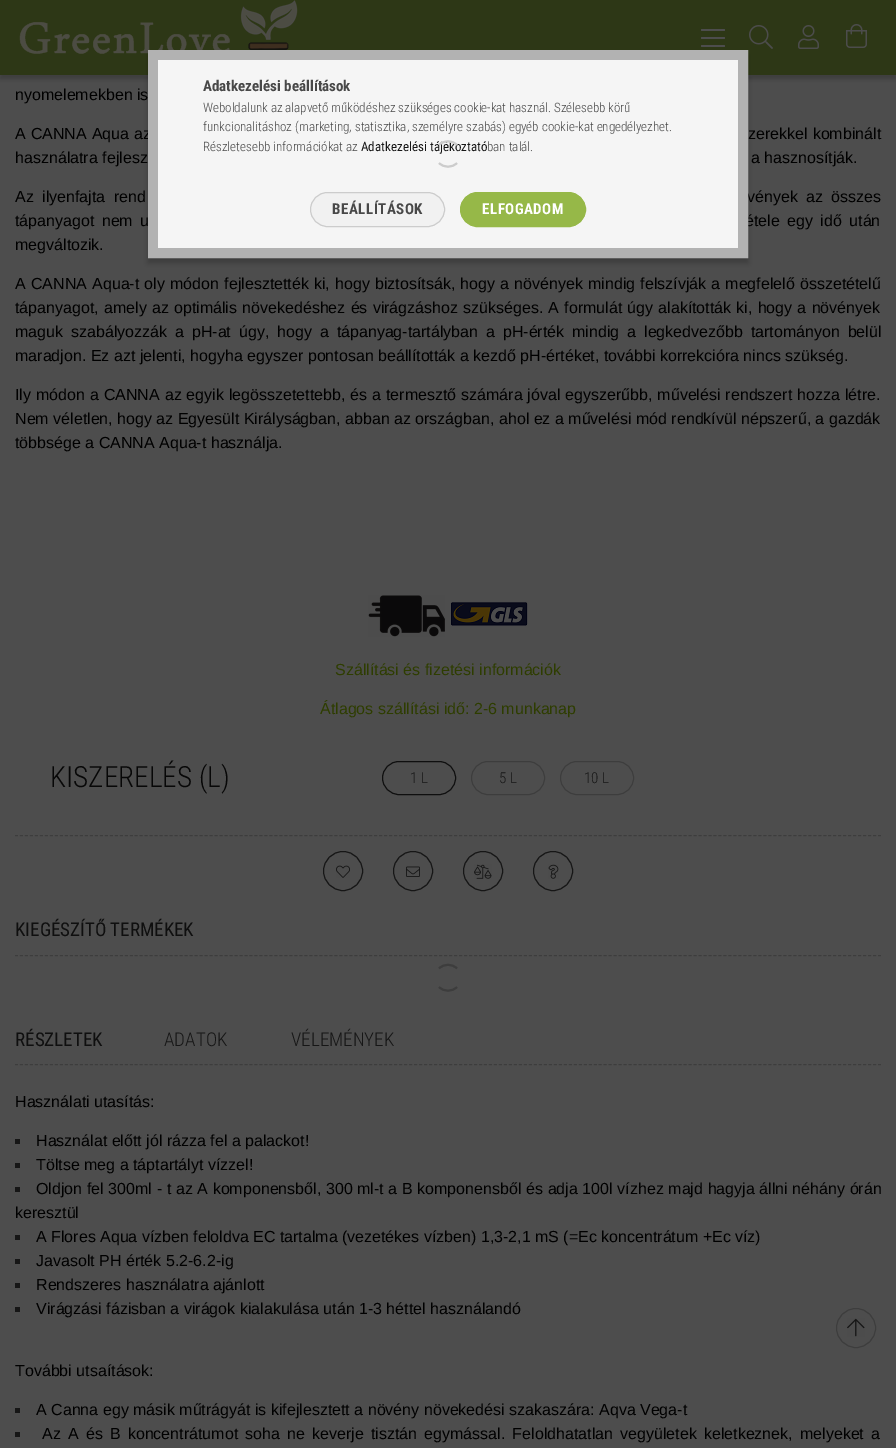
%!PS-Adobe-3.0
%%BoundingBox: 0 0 896 1448
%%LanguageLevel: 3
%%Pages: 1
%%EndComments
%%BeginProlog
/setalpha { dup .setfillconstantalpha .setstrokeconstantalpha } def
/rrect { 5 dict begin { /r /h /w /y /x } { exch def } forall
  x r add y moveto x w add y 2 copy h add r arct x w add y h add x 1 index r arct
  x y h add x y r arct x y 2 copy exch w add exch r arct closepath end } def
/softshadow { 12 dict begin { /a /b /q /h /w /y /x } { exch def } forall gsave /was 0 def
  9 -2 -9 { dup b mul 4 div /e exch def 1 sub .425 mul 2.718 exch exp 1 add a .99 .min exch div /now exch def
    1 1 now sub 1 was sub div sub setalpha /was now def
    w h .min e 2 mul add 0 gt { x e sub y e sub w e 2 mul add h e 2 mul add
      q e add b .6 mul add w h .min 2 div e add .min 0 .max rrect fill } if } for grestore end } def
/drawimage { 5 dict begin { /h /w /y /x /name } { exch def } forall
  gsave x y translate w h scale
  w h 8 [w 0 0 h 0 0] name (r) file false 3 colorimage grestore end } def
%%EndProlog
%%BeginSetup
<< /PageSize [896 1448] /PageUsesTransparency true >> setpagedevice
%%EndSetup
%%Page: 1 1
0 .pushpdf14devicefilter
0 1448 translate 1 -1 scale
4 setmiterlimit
0.302 setgray
0 0 896 1448 rectfill
0 setgray
0 4 896 75 0 2 0.2 softshadow
0.176 0.216 0.086 setrgbcolor
0 0 896 75 rectfill
(images/1.raw) 19 0 279 73 drawimage
0.302 setgray
701 45 24 2 1 rrect fill
(images/2.raw) 749 25 24 24 drawimage
0 setgray
148 55 600 208 0 2.5 0.2 softshadow
0.302 setgray
701 29 24 2 1 rrect fill
701 37 24 2 1 rrect fill
(images/3.raw) 798 25 21 24 drawimage
(images/4.raw) 846 24 21 24 drawimage
(images/5.raw) 368 595 77 42 drawimage
(images/6.raw) 451 602 77 24 drawimage
0.059 setgray
382.5 761.5 73 33 16.5 rrect stroke
0.239 setgray
471.5 761.5 73 33 16.5 rrect stroke
560.5 761.5 73 33 16.5 rrect stroke
[3 1.99] 0 setdash
newpath 15 835.5 moveto 881 835.5 lineto stroke
0.086 setgray
[] 0 setdash
newpath 343 871 19.5 0 360 arc closepath stroke
(images/7.raw) 336 865 14 13 drawimage
newpath 413 871 19.5 0 360 arc closepath stroke
(images/8.raw) 406 866 14 11 drawimage
newpath 483 871 19.5 0 360 arc closepath stroke
(images/9.raw) 474 864 18 15 drawimage
newpath 553 871 19.5 0 360 arc closepath stroke
(images/10.raw) 548 864 11 15 drawimage
0.239 setgray
[3 1.99] 0 setdash
newpath 15 955.5 moveto 881 955.5 lineto stroke
2 setlinewidth
[] 0 setdash
newpath 439 968.5 moveto 444 963.5 452 963.5 457 968.5 curveto 457 987 moveto 452 992 444 992 439 987 curveto stroke
1 setlinewidth
[3 1.99] 0 setdash
newpath 15 1064.5 moveto 881 1064.5 lineto stroke
0.086 setgray
15 1139 5 5 rectfill
15 1163 5 5 rectfill
15 1187 5 5 rectfill
15 1235 5 5 rectfill
15 1259 5 5 rectfill
15 1283 5 5 rectfill
15 1307 5 5 rectfill
15 1408 5 5 rectfill
15 1432 5 5 rectfill
0.239 setgray
[] 0 setdash
newpath 856 1328 19.5 0 360 arc closepath stroke
(images/11.raw) 847 1318 18 19 drawimage
/LiberationSans-Regular [16 0 0 -16 0 0] selectfont
0 setgray
15 100 moveto (nyomelemekben is) show
15 139 moveto 0.5 0 32 (A CANNA Aqua az) widthshow
748 139 moveto 0.5 0 32 (zerekkel kombinált) widthshow
15 163 moveto (használatra fejlesz) show
751 163 moveto (a hasznosítják.) show
15 202 moveto 4 0 32 (Az ilyenfajta rend) widthshow
747 202 moveto 4 0 32 (vények az összes) widthshow
15 226 moveto 3 0 32 (tápanyagot nem u) widthshow
745 226 moveto 3 0 32 (étele egy idő után) widthshow
0.698 setgray
10 setlinewidth
153 55 590 198 rectstroke
0.961 setgray
158 60 580 188 rectfill
/RobotoCondensed-Regular [13 0 0 -13 0 0] selectfont
0.086 setgray
361 151 moveto (Adatkezelési tájékoztató) show
0.8 setgray
2 setlinewidth
newpath 439 145 moveto 444 140 452 140 457 145 curveto 457 163 moveto 452 168 444 168 439 163 curveto stroke
0.588 0.722 0.282 setrgbcolor
460.5 192.5 125 34 17 rrect gsave fill grestore
1 setlinewidth
stroke
/RobotoCondensed-Bold [15 0 0 -15 0 0] selectfont
1 setgray
482 214 moveto 0.5 0 (ELFOGADOM) ashow
0.945 setgray
310.5 192.5 134 34 17 rrect gsave fill grestore
0.8 setgray
stroke
0.282 setgray
332 214 moveto 0.5 0 (BEÁLLÍTÁSOK) ashow
/RobotoCondensed-Light [13 0 0 -13 0 0] selectfont
487 151 moveto (ban talál.) show
203 151 moveto (Részletesebb információkat az) show
203 131 moveto (funkcionalitáshoz \(marketing, statisztika, személyre szabás\) egyéb cookie-kat engedélyezhet.) show
203 112 moveto (Weboldalunk az alapvető működéshez szükséges cookie-kat használ. Szélesebb körű) show
/RobotoCondensed-Bold [15 0 0 -15 0 0] selectfont
203 91 moveto (Adatkezelési beállítások) show
/LiberationSans-Regular [16 0 0 -16 0 0] selectfont
0 setgray
15 250 moveto (megváltozik.) show
15 289 moveto 0.75 0 32 (A CANNA Aqua-t oly módon fejlesztették ki, hogy biztosítsák, hogy a növények mindig felszívják a megfelelő összetételű) widthshow
15 313 moveto 0.75 0 32 (tápanyagot, amely az optimális növekedéshez és virágzáshoz szükséges. A formulát úgy alakították ki, hogy a növények) widthshow
15 337 moveto 3.5 0 32 (maguk szabályozzák a pH-at úgy, hogy a tápanyag-tartályban a pH-érték mindig a legkedvezőbb tartományon belül) widthshow
15 361 moveto (maradjon. Ez azt jelenti, hogyha egyszer pontosan beállították a kezdő pH-értéket, további korrekcióra nincs szükség.) show
15 400 moveto 0.5 0 32 (Ily módon a CANNA az egyik legösszetettebb, és a termesztő számára jóval egyszerűbb, művelési rendszert hozza létre.) widthshow
15 424 moveto (Nem véletlen, hogy az Egyesült Királyságban, abban az országban, ahol ez a művelési mód rendkívül népszerű, a gazdák) show
15 448 moveto (többsége a CANNA Aqua-t használja.) show
0.18 0.239 0 setrgbcolor
335 675 moveto (Szállítási és fizetési információk) show
320 714 moveto (Átlagos szállítási idő: 2-6 munkanap) show
/RobotoCondensed-Light [29.25 0 0 -29.25 0 0] selectfont
0.027 setgray
50 787 moveto (KISZERELÉS \(L\)) show
/RobotoCondensed-Light [15 0 0 -15 0 0] selectfont
0.086 setgray
410 783 moveto (1 L) show
499 783 moveto (5 L) show
584 783 moveto (10 L) show
/RobotoCondensed-Regular [19 0 0 -19 0 0] selectfont
0.059 setgray
15 936 moveto (KIEGÉSZÍTŐ TERMÉKEK) show
15 1046 moveto (RÉSZLETEK) show
/RobotoCondensed-Light [19 0 0 -19 0 0] selectfont
0.086 setgray
164 1046 moveto (ADATOK) show
291 1046 moveto (VÉLEMÉNYEK) show
/LiberationSans-Regular [16 0 0 -16 0 0] selectfont
0 setgray
15 1107 moveto (Használati utasítás:) show
36 1146 moveto (Használat előtt jól rázza fel a palackot!) show
36 1170 moveto (Töltse meg a táptartályt vízzel!) show
36 1194 moveto 0.2 0 32 (Oldjon fel 300ml - t az A komponensből, 300 ml-t a B komponensből és adja 100l vízhez majd hagyja állni néhány órán) widthshow
15 1218 moveto (keresztül) show
36 1242 moveto (A Flores Aqua vízben feloldva EC tartalma \(vezetékes vízben\) 1,3-2,1 mS \(=Ec koncentrátum +Ec víz\)) show
36 1266 moveto (Javasolt PH érték 5.2-6.2-ig) show
36 1290 moveto (Rendszeres használatra ajánlott) show
36 1314 moveto (Virágzási fázisban a virágok kialakulása után 1-3 héttel használandó) show
15 1376 moveto (További utsaítások:) show
36 1415 moveto (A Canna egy másik műtrágyát is kifejlesztett a növény növekedési szakaszára: Aqva Vega-t) show
42 1439 moveto 2.75 0 32 (Az A és B koncentrátumot soha ne keverje tisztán egymással. Feloldhatatlan vegyületek keletkeznek, melyeket a) widthshow
.poppdf14devicefilter showpage
%%EOF
